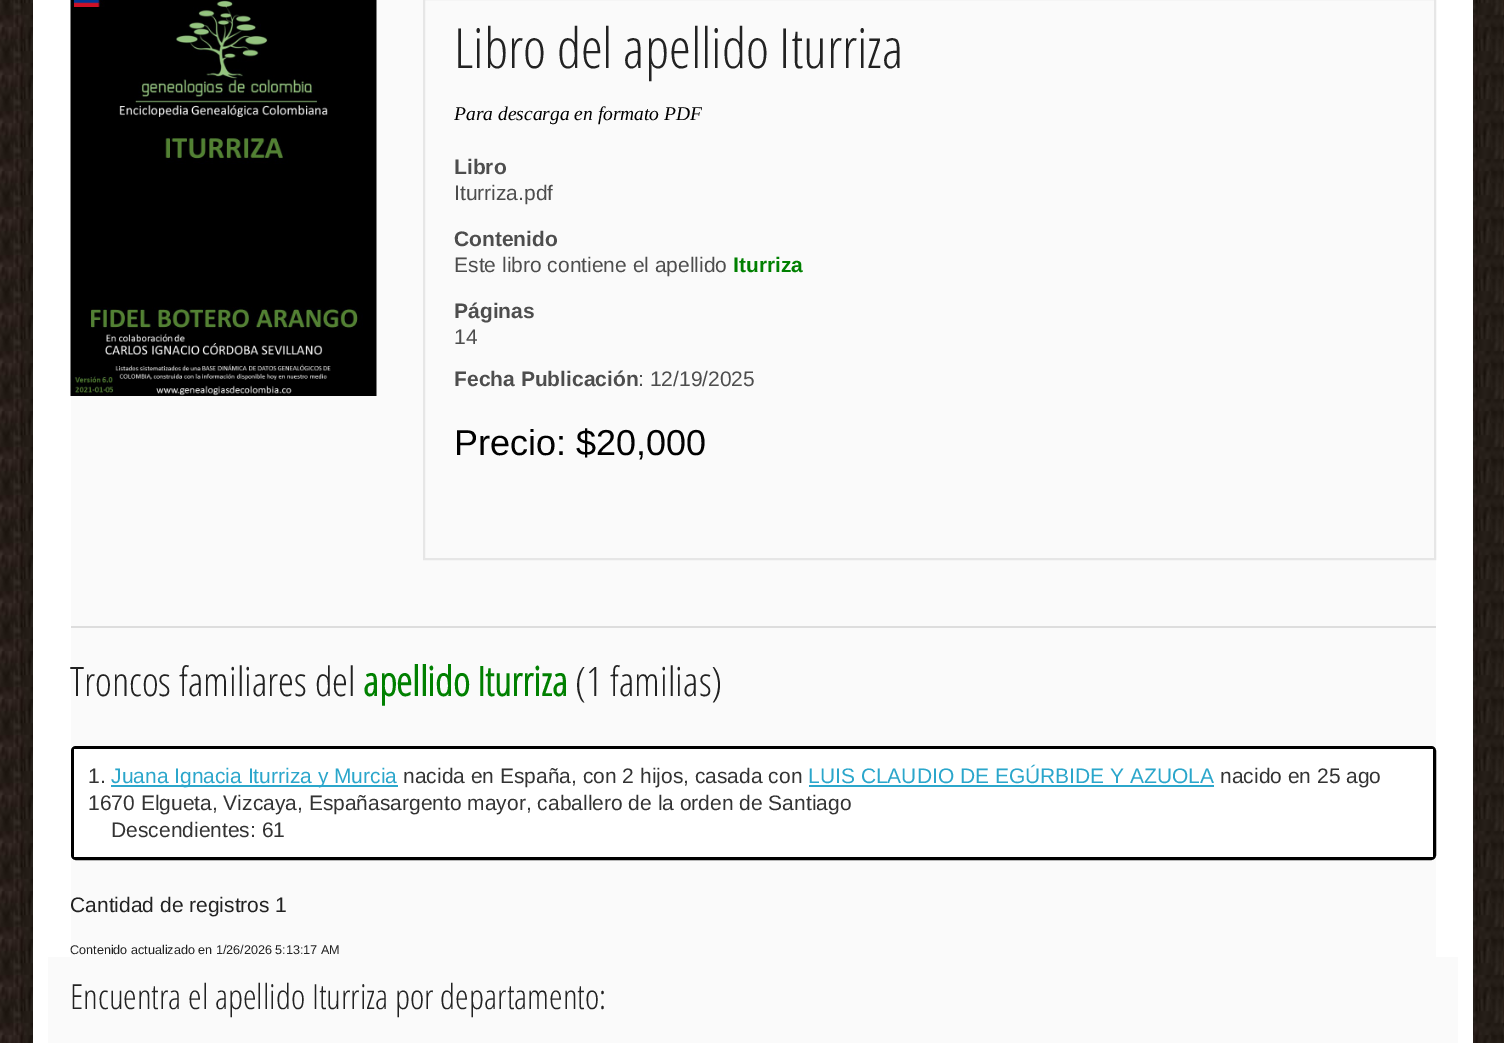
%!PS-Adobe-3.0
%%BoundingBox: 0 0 1504 1043
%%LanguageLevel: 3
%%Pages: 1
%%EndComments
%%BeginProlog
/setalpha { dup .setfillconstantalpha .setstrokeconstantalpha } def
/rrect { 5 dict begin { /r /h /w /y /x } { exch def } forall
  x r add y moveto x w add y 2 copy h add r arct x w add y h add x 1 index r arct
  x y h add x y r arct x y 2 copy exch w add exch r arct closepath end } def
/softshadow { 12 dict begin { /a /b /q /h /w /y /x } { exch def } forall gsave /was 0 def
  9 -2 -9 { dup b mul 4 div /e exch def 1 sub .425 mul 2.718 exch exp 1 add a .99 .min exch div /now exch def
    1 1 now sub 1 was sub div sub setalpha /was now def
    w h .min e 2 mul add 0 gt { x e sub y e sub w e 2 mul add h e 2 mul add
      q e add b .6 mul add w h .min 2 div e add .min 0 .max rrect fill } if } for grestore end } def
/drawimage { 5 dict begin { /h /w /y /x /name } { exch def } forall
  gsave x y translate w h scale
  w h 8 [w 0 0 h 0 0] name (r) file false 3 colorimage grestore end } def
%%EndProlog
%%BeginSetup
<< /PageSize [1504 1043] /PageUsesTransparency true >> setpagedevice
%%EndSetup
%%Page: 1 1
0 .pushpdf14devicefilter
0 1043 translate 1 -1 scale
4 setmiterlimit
1 setgray
0 0 1504 1043 rectfill
(images/1.raw) 0 0 1504 1043 drawimage
0 setgray
33 -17 1440 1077 5 4 0.3 softshadow
1 setgray
33 0 1440 1043 rectfill
0.98 setgray
71 0 1365 957 rectfill
(images/2.raw) 70 0 307 396 drawimage
0.902 setgray
2 setlinewidth
424 -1 1011 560 rectstroke
0.867 setgray
71 626 1365 2 rectfill
0 setgray
3 setlinewidth
72.5 747.5 1362 111 3.5 rrect stroke
1 setgray
74 749 1359 108 rectfill
0.169 0.651 0.796 setrgbcolor
111 785 287 2 rectfill
809 785 405 2 rectfill
0.98 setgray
48 957 1410 86 rectfill
/OpenSans-Light [55.5 0 0 -55.5 0 0] selectfont
0.133 setgray
454 68 moveto (Libro del apellido Iturriza) show
/LiberationSerif-Italic [19.5 0 0 -19.5 0 0] selectfont
0 setgray
454 120 moveto (Para descarga en formato PDF) show
/LiberationSans-Bold [21 0 0 -21 0 0] selectfont
0.302 setgray
454 174 moveto (Libro) show
/LiberationSans-Regular [21 0 0 -21 0 0] selectfont
454 200 moveto (Iturriza.pdf) show
/LiberationSans-Bold [21 0 0 -21 0 0] selectfont
454 246 moveto (Contenido) show
/LiberationSans-Regular [21 0 0 -21 0 0] selectfont
454 272 moveto (Este libro contiene el apellido) show
/LiberationSans-Bold [21 0 0 -21 0 0] selectfont
0 0.502 0 setrgbcolor
733 272 moveto (Iturriza) show
0.302 setgray
454 318 moveto (Páginas) show
/LiberationSans-Regular [21 0 0 -21 0 0] selectfont
454 344 moveto (14) show
/LiberationSans-Bold [21 0 0 -21 0 0] selectfont
454 386 moveto (Fecha Publicación) show
/LiberationSans-Regular [21 0 0 -21 0 0] selectfont
638 386 moveto (: 12/19/2025) show
/LiberationSans-Regular [36 0 0 -36 0 0] selectfont
0 setgray
454 455 moveto (Precio: $20,000) show
/OpenSans-Light [40.5 0 0 -40.5 0 0] selectfont
0.133 setgray
70 696 moveto (Troncos familiares del) show
/OpenSans-Bold [40.5 0 0 -40.5 0 0] selectfont
0 0.502 0 setrgbcolor
363 696 moveto (apellido Iturriza) show
/OpenSans-Light [40.5 0 0 -40.5 0 0] selectfont
0.133 setgray
575 696 moveto (\(1 familias\)) show
/LiberationSans-Regular [21 0 0 -21 0 0] selectfont
0.2 setgray
88 783 moveto (1.) show
0.169 0.651 0.796 setrgbcolor
111 783 moveto (Juana Ignacia Iturriza y Murcia) show
0.2 setgray
403 783 moveto (nacida en España, con 2 hijos, casada con) show
0.169 0.651 0.796 setrgbcolor
808 783 moveto (LUIS CLAUDIO DE EGÚRBIDE Y AZUOLA) show
0.2 setgray
1220 783 moveto (nacido en 25 ago) show
88 810 moveto (1670 Elgueta, Vizcaya, Españasargento mayor, caballero de la orden de Santiago) show
111 837 moveto (Descendientes: 61) show
0.133 setgray
70 912 moveto (Cantidad de registros 1) show
/LiberationSans-Regular [12.6 0 0 -12.6 0 0] selectfont
70 954 moveto (Contenido actualizado en 1/26/2026 5:13:17 AM) show
/OpenSans-Light [34.5 0 0 -34.5 0 0] selectfont
70 1009 moveto (Encuentra el apellido Iturriza por departamento:) show
.poppdf14devicefilter showpage
%%EOF
